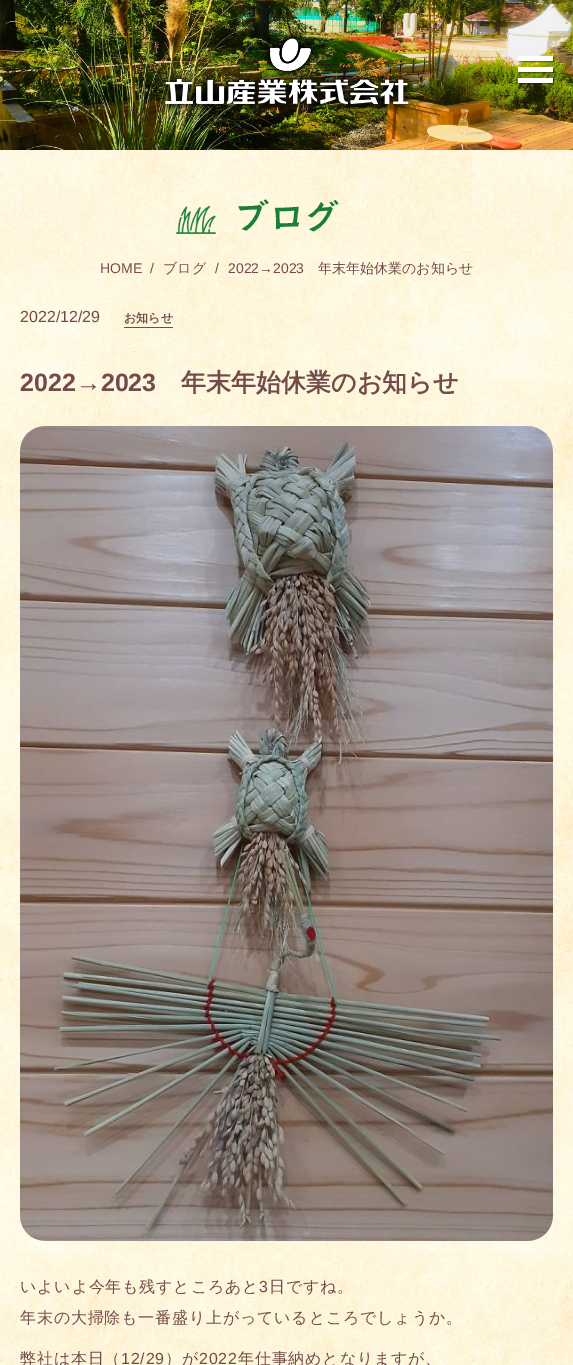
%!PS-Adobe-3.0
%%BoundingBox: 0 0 573 1365
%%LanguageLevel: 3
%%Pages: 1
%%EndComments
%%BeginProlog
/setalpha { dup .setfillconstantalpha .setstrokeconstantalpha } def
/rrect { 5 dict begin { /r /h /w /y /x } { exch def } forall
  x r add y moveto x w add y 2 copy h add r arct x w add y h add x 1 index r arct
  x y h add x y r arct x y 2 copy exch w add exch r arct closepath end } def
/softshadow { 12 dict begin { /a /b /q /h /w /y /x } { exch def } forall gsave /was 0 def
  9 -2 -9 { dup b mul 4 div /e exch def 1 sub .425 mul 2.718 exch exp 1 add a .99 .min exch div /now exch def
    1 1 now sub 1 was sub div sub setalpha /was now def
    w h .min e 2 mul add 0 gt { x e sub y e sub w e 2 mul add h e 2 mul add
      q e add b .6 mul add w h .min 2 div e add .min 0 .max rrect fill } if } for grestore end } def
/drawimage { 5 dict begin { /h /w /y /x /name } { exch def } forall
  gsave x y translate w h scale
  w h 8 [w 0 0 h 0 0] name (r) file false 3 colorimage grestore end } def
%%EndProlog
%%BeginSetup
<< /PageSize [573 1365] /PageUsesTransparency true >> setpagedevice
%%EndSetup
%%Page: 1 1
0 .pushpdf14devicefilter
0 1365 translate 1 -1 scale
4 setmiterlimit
1 setgray
0 0 573 1365 rectfill
(images/1.raw) 0 150 573 1215 drawimage
(images/2.raw) 0 0 573 150 drawimage
(images/3.raw) 160 31 255 81 drawimage
0 setgray
519 57 35 5 0 0.5 0.5 softshadow
1 setgray
518 56 35 5 rectfill
0 setgray
519 68 35 5 0 0.5 0.5 softshadow
1 setgray
518 67 35 5 rectfill
0 setgray
519 79 35 5 0 0.5 0.5 softshadow
1 setgray
518 78 35 5 rectfill
(images/4.raw) 176 206 40 28 drawimage
0.451 0.294 0.294 setrgbcolor
124 327 49 1 rectfill
(images/5.raw) 20 426 533 815 drawimage
/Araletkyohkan-Medium [35 0 0 -35 0 0] selectfont
0.102 0.498 0.216 setrgbcolor
234 230 moveto (ブログ) show
/LiberationSans-Regular [14 0 0 -14 0 0] selectfont
0.451 0.294 0.294 setrgbcolor
100 273 moveto (HOME) show
150 273 moveto (/) show
/WenQuanYiZenHei-Medium [14 0 0 -14 0 0] selectfont
163 273 moveto (ブログ) show
/LiberationSans-Regular [14 0 0 -14 0 0] selectfont
215 273 moveto (/) show
228 273 moveto (2022→2023) show
/WenQuanYiZenHei-Medium [14 0 0 -14 0 0] selectfont
318 273 moveto (年末年始休業のお知らせ) show
/LiberationSans-Regular [16 0 0 -16 0 0] selectfont
20 322 moveto (2022/12/29) show
/WenQuanYiZenHei-Bold [12 0 0 -12 0 0] selectfont
124 322 moveto (お知らせ) show
/LiberationSans-Bold [25 0 0 -25 0 0] selectfont
20 391 moveto (2022→2023) show
/WenQuanYiZenHei-Bold [25 0 0 -25 0 0] selectfont
181 391 moveto (年末年始休業のお知らせ) show
/WenQuanYiZenHei-Medium [16 0 0 -16 0 0] selectfont
20 1292 moveto 0.8 0 (いよいよ今年も残すところあと) ashow
/LiberationSans-Regular [16 0 0 -16 0 0] selectfont
259 1292 moveto 0.8 0 (3) ashow
/WenQuanYiZenHei-Medium [16 0 0 -16 0 0] selectfont
269 1292 moveto 0.8 0 (日ですね。) ashow
20 1323 moveto 0.8 0 (年末の大掃除も一番盛り上がっているところでしょうか。) ashow
20 1364 moveto 0.8 0 (弊社は本日（) ashow
/LiberationSans-Regular [16 0 0 -16 0 0] selectfont
121 1364 moveto 0.8 0 (12/29) ashow
/WenQuanYiZenHei-Medium [16 0 0 -16 0 0] selectfont
165 1364 moveto 0.8 0 (）が) ashow
/LiberationSans-Regular [16 0 0 -16 0 0] selectfont
199 1364 moveto 0.8 0 (2022) ashow
/WenQuanYiZenHei-Medium [16 0 0 -16 0 0] selectfont
238 1364 moveto 0.8 0 (年仕事納めとなりますが、) ashow
.poppdf14devicefilter showpage
%%EOF
